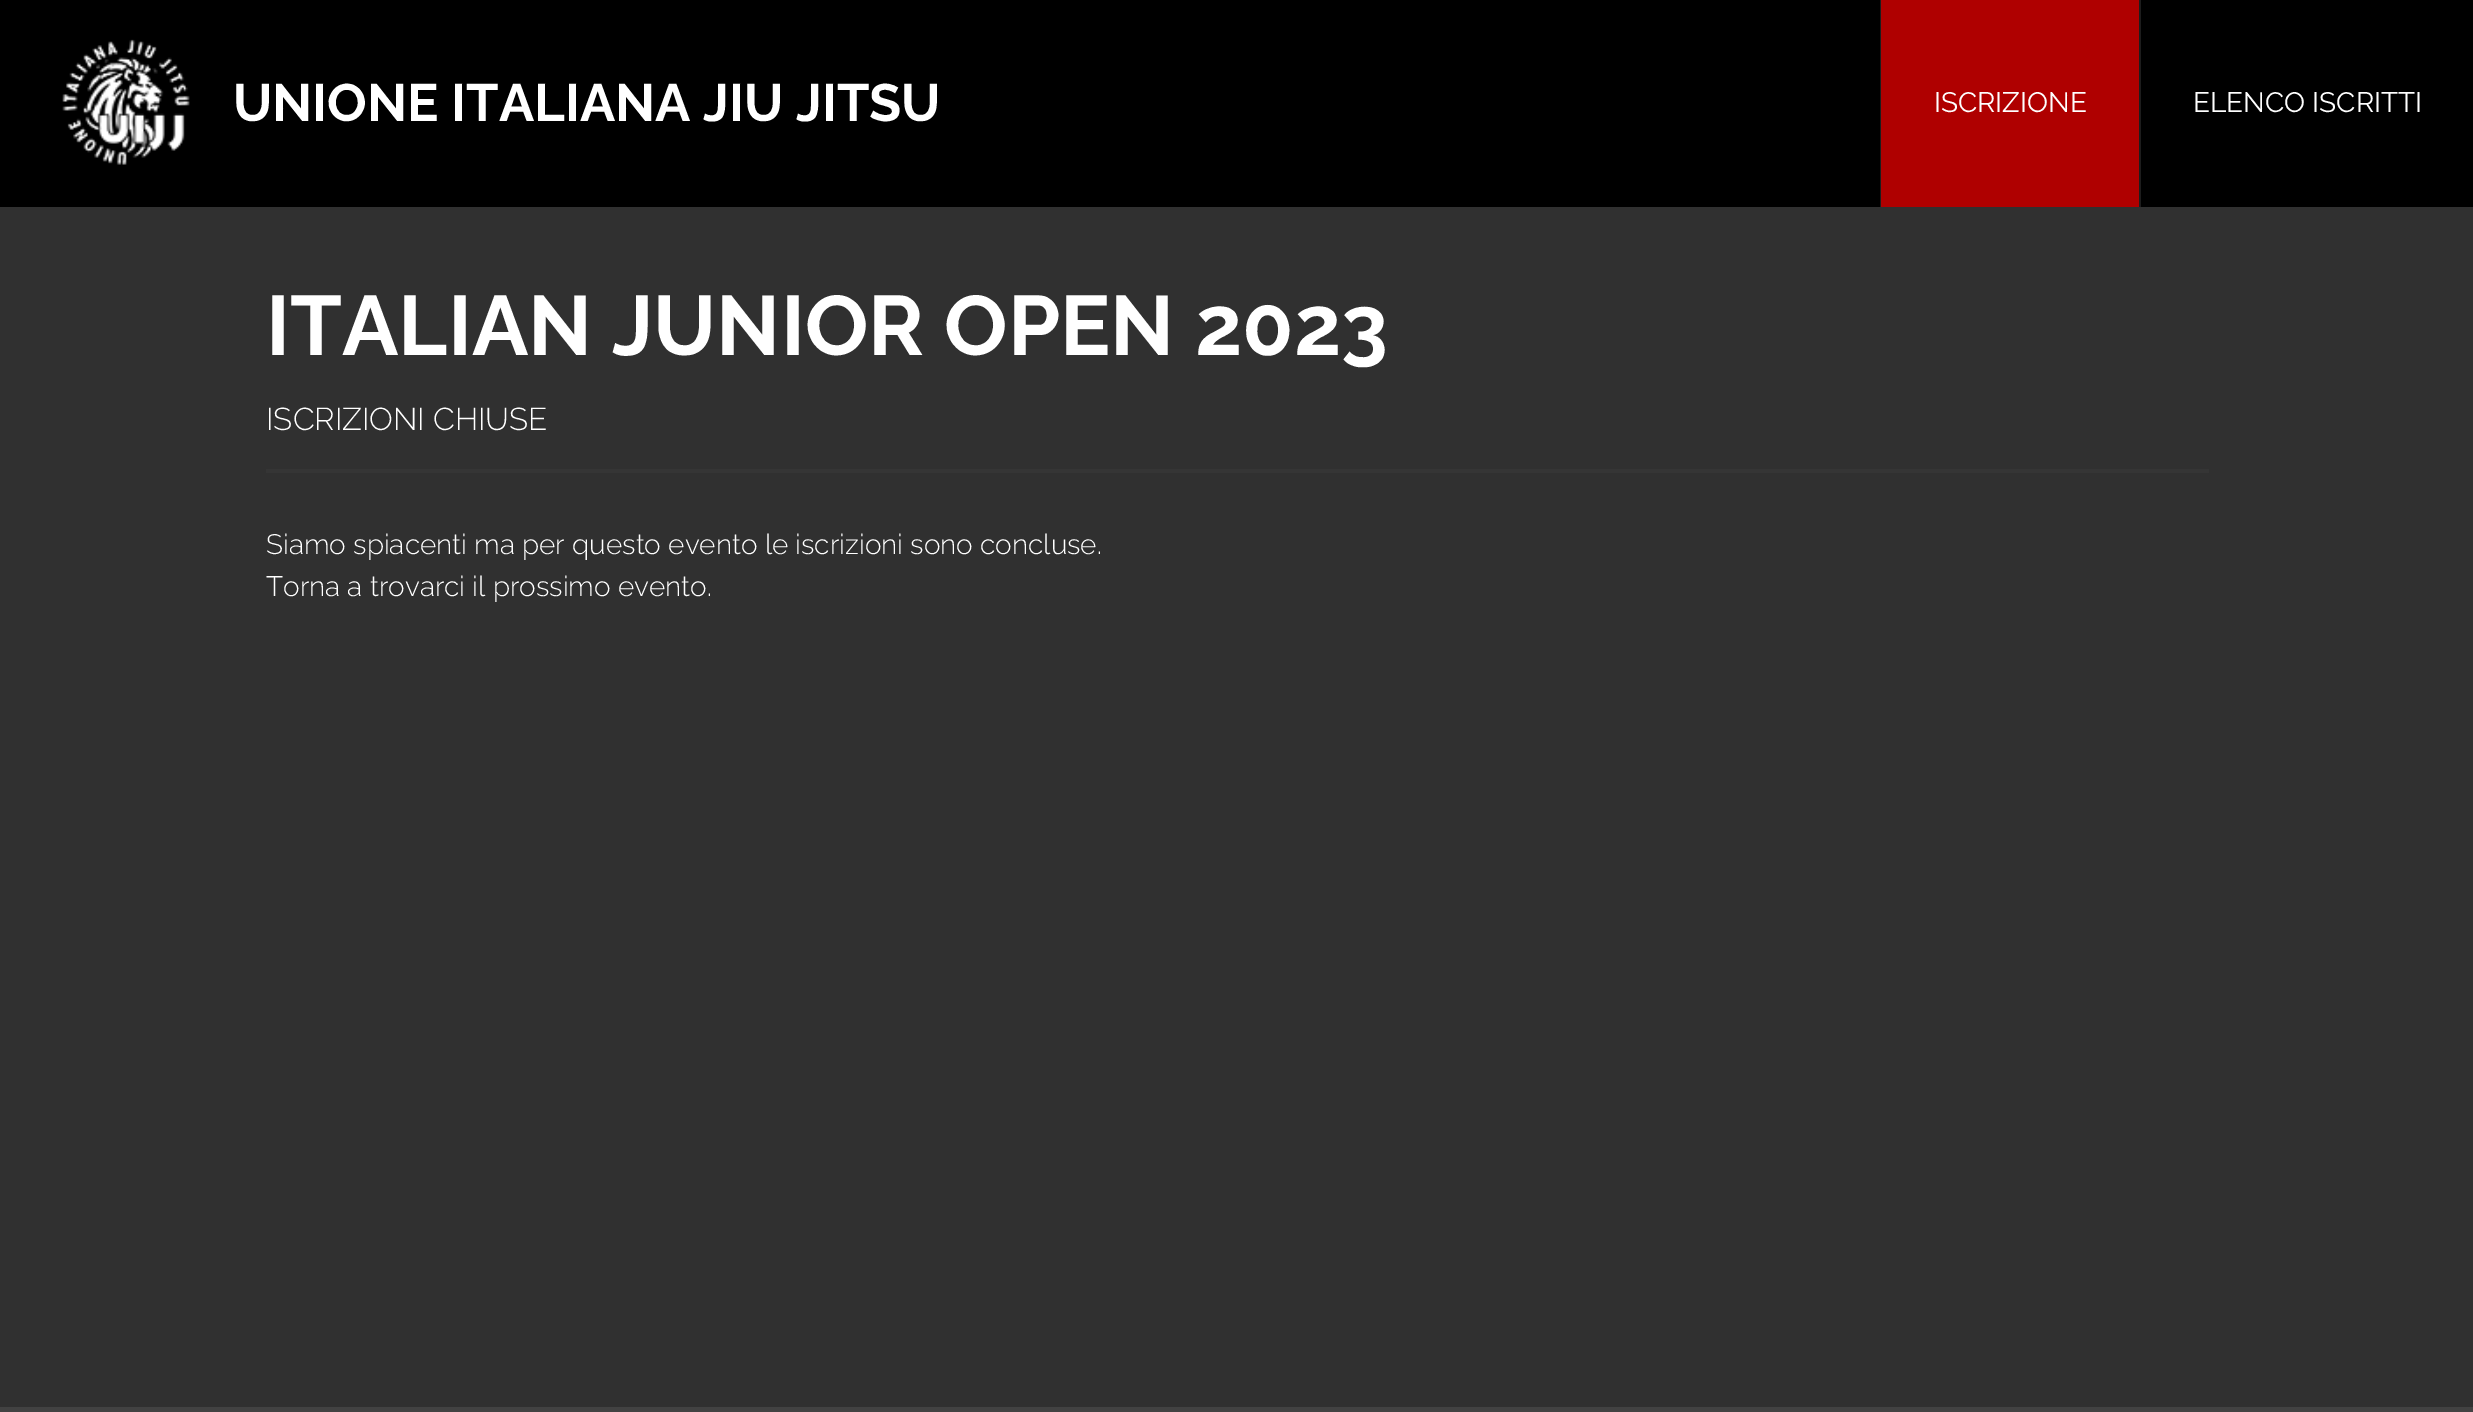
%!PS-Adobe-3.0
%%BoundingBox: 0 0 2473 1412
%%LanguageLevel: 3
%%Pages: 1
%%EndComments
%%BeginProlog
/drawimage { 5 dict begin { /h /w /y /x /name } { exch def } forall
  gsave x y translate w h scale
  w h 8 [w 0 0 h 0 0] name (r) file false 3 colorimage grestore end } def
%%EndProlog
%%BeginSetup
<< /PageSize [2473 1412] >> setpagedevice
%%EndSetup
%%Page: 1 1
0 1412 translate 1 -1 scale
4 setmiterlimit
0 setgray
0 0 2473 1412 rectfill
(images/1.raw) 62 39 128 126 drawimage
0.114 setgray
1880 0 1 207 rectfill
0.686 0 0 setrgbcolor
1881 0 258 207 rectfill
0.114 setgray
2139 0 2 207 rectfill
0.188 setgray
0 207 2473 1200 rectfill
0.208 setgray
266 469 1943 4 rectfill
0.259 setgray
0 1407 2473 5 rectfill
/Raleway-Bold [52.5 0 0 -52.5 0 0] selectfont
1 setgray
233 121 moveto (UNIONE ITALIANA JIU JITSU) show
/Raleway-Regular [28 0 0 -28 0 0] selectfont
1934 112 moveto (ISCRIZIONE) show
2193 112 moveto (ELENCO ISCRITTI) show
/Raleway-Bold [84 0 0 -84 0 0] selectfont
266 355 moveto (ITALIAN JUNIOR OPEN 2023) show
/Raleway-Light [31.5 0 0 -31.5 0 0] selectfont
266 430 moveto (ISCRIZIONI CHIUSE) show
/Raleway-Light [28 0 0 -28 0 0] selectfont
266 554 moveto (Siamo spiacenti ma per questo evento le iscrizioni sono concluse.) show
266 596 moveto (Torna a trovarci il prossimo evento.) show
showpage
%%EOF
